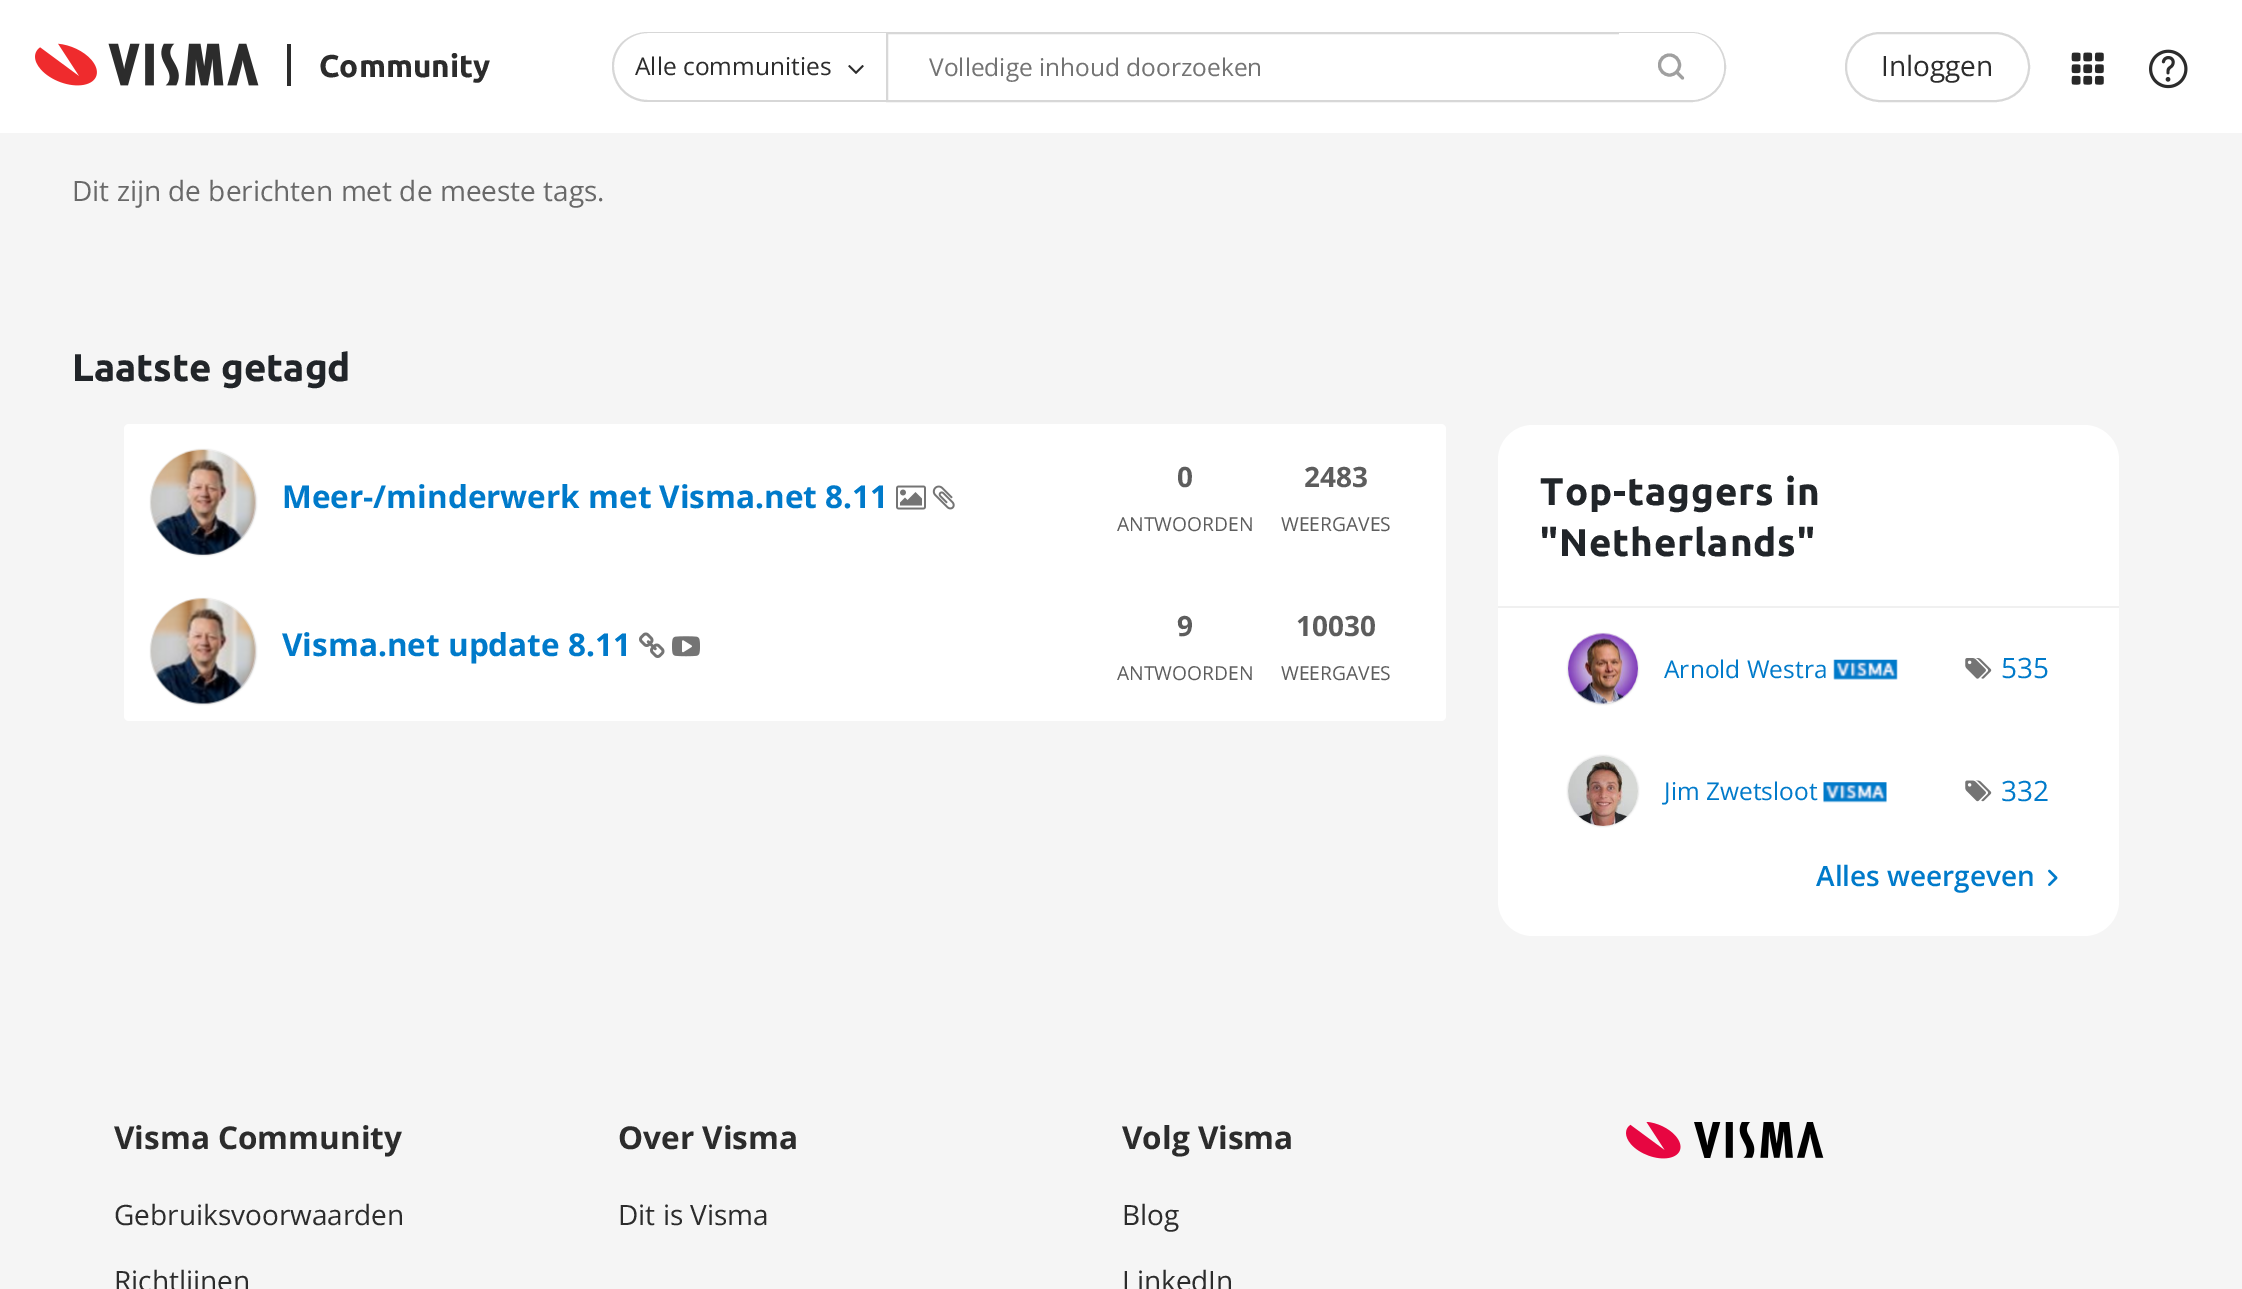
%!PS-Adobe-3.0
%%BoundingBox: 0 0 2242 1289
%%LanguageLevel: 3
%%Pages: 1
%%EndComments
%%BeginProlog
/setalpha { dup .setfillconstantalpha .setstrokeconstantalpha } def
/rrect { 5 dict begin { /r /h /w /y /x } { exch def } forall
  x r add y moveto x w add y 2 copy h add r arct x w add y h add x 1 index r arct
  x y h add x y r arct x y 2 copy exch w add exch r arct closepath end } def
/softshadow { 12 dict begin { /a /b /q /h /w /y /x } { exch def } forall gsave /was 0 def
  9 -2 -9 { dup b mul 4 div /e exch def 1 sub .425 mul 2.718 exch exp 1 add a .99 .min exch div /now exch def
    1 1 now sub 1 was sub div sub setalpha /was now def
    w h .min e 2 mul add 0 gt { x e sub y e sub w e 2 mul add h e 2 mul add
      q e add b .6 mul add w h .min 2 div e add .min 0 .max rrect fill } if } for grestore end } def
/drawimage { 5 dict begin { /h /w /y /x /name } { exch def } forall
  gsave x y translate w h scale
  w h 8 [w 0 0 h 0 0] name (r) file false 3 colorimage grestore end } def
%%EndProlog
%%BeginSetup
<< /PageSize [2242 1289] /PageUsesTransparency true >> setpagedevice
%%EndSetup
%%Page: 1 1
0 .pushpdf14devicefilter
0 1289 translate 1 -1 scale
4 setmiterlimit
0.961 setgray
0 0 2242 1289 rectfill
1 setgray
0 0 2242 133 rectfill
(images/1.raw) 35 43 224 43 drawimage
0.173 setgray
287 44 4 42 rectfill
(images/2.raw) 848 65 16 9 drawimage
0.843 setgray
newpath 648 32 moveto 886 32 lineto 886 102 lineto 648 102 lineto 628 102 612 86 612 66 curveto 612 47 628 32 648 32 curveto closepath 648 33 moveto 886 33 lineto 886 100 lineto 648 100 lineto 629 100 614 85 614 66 curveto 614 48 629 33 648 33 curveto closepath eofill
2 setlinewidth
newpath 887 33 moveto 1691 33 lineto 1710 33 1725 48 1725 67 curveto 1725 86 1710 101 1691 101 curveto 887 101 lineto closepath stroke
1 setgray
newpath 1619 33 moveto 1690.5 33 lineto 1709 33 1724 48 1724 66.5 curveto 1724 85 1709 100 1690.5 100 curveto 1619 100 lineto closepath fill
0.627 setgray
3.1 setlinewidth
1 setlinecap
newpath 1682.5 78 moveto 1678 73.5 lineto stroke
0 setlinecap
newpath 1669.5 65 10 0 360 arc closepath stroke
0.843 setgray
2 setlinewidth
1846 33 183 68 34 rrect stroke
(images/3.raw) 2071 52 33 33 drawimage
(images/4.raw) 2149 49 39 40 drawimage
1 setgray
124 424 1322 297 5 rrect fill
0.769 setgray
151 450 105 105 52.5 1 1 softshadow
(images/5.raw) 150 449 106 106 drawimage
(images/6.raw) 896 485 30 25 drawimage
(images/7.raw) 932 485 23 25 drawimage
151 599 105 105 52.5 1 1 softshadow
(images/8.raw) 150 598 106 106 drawimage
(images/9.raw) 639 632 26 26 drawimage
(images/10.raw) 672 636 28 21 drawimage
1 setgray
1498 425 621 511 35 rrect fill
0.941 setgray
1498 606 621 2 rectfill
0.769 setgray
1568 634 70 70 35 1 1 softshadow
(images/11.raw) 1568 633 70 71 drawimage
(images/12.raw) 1833 659 65 21 drawimage
(images/13.raw) 1965 658 27 21 drawimage
1568 756 70 70 35 1 1 softshadow
(images/14.raw) 1568 756 70 70 drawimage
(images/15.raw) 1823 782 64 21 drawimage
(images/16.raw) 1965 780 27 22 drawimage
(images/17.raw) 2048 869 10 17 drawimage
(images/18.raw) 1626 1122 198 37 drawimage
/Ubuntu-Bold [31.5 0 0 -31.5 0 0] selectfont
0.173 setgray
319 77 moveto (Community) show
/OpenSans-Regular [24.5 0 0 -24.5 0 0] selectfont
635 75 moveto (Alle communities) show
0.451 setgray
929 76 moveto (Volledige inhoud doorzoeken) show
/OpenSans-Regular [28 0 0 -28 0 0] selectfont
0.173 setgray
1881 76 moveto (Inloggen) show
0.412 setgray
72 201 moveto (Dit zijn de berichten met de meeste tags.) show
/Ubuntu-Bold [38.5 0 0 -38.5 0 0] selectfont
0.129 0.145 0.161 setrgbcolor
72 381 moveto (Laatste getagd) show
/OpenSans-Bold [31.5 0 0 -31.5 0 0] selectfont
0 0.478 0.792 setrgbcolor
282 508 moveto (Meer-/minderwerk met Visma.net 8.11) show
/OpenSans-Bold [28 0 0 -28 0 0] selectfont
0.365 setgray
1177 487 moveto (0) show
/OpenSans-Regular [19.25 0 0 -19.25 0 0] selectfont
1117 531 moveto (ANTWOORDEN) show
/OpenSans-Bold [28 0 0 -28 0 0] selectfont
1304 487 moveto (2483) show
/OpenSans-Regular [19.25 0 0 -19.25 0 0] selectfont
1281 531 moveto (WEERGAVES) show
/OpenSans-Bold [31.5 0 0 -31.5 0 0] selectfont
0 0.478 0.792 setrgbcolor
282 656 moveto (Visma.net update 8.11) show
/OpenSans-Bold [28 0 0 -28 0 0] selectfont
0.365 setgray
1177 636 moveto (9) show
/OpenSans-Regular [19.25 0 0 -19.25 0 0] selectfont
1117 680 moveto (ANTWOORDEN) show
/OpenSans-Bold [28 0 0 -28 0 0] selectfont
1296 636 moveto (10030) show
/OpenSans-Regular [19.25 0 0 -19.25 0 0] selectfont
1281 680 moveto (WEERGAVES) show
/Ubuntu-Bold [38.5 0 0 -38.5 0 0] selectfont
0.129 0.145 0.161 setrgbcolor
1540 505 moveto 0.9 0 (Top-taggers in) ashow
1540 556 moveto 0.9 0 ("Netherlands") ashow
/OpenSans-Regular [24.5 0 0 -24.5 0 0] selectfont
0 0.478 0.792 setrgbcolor
1664 678 moveto (Arnold Westra) show
/OpenSans-Regular [28 0 0 -28 0 0] selectfont
2001 678 moveto (535) show
/OpenSans-Regular [24.5 0 0 -24.5 0 0] selectfont
1664 800 moveto (Jim Zwetsloot) show
/OpenSans-Regular [28 0 0 -28 0 0] selectfont
2001 801 moveto (332) show
/OpenSans-SemiBold [28 0 0 -28 0 0] selectfont
1816 886 moveto (Alles weergeven) show
/OpenSans-Bold [31.5 0 0 -31.5 0 0] selectfont
0.173 setgray
114 1149 moveto (Visma Community) show
/OpenSans-Regular [28 0 0 -28 0 0] selectfont
114 1225 moveto (Gebruiksvoorwaarden) show
114 1291 moveto (Richtlijnen) show
/OpenSans-Bold [31.5 0 0 -31.5 0 0] selectfont
618 1149 moveto (Over Visma) show
/OpenSans-Regular [28 0 0 -28 0 0] selectfont
618 1225 moveto (Dit is Visma) show
/OpenSans-Bold [31.5 0 0 -31.5 0 0] selectfont
1122 1149 moveto (Volg Visma) show
/OpenSans-Regular [28 0 0 -28 0 0] selectfont
1122 1225 moveto (Blog) show
1122 1291 moveto (LinkedIn) show
.poppdf14devicefilter showpage
%%EOF
